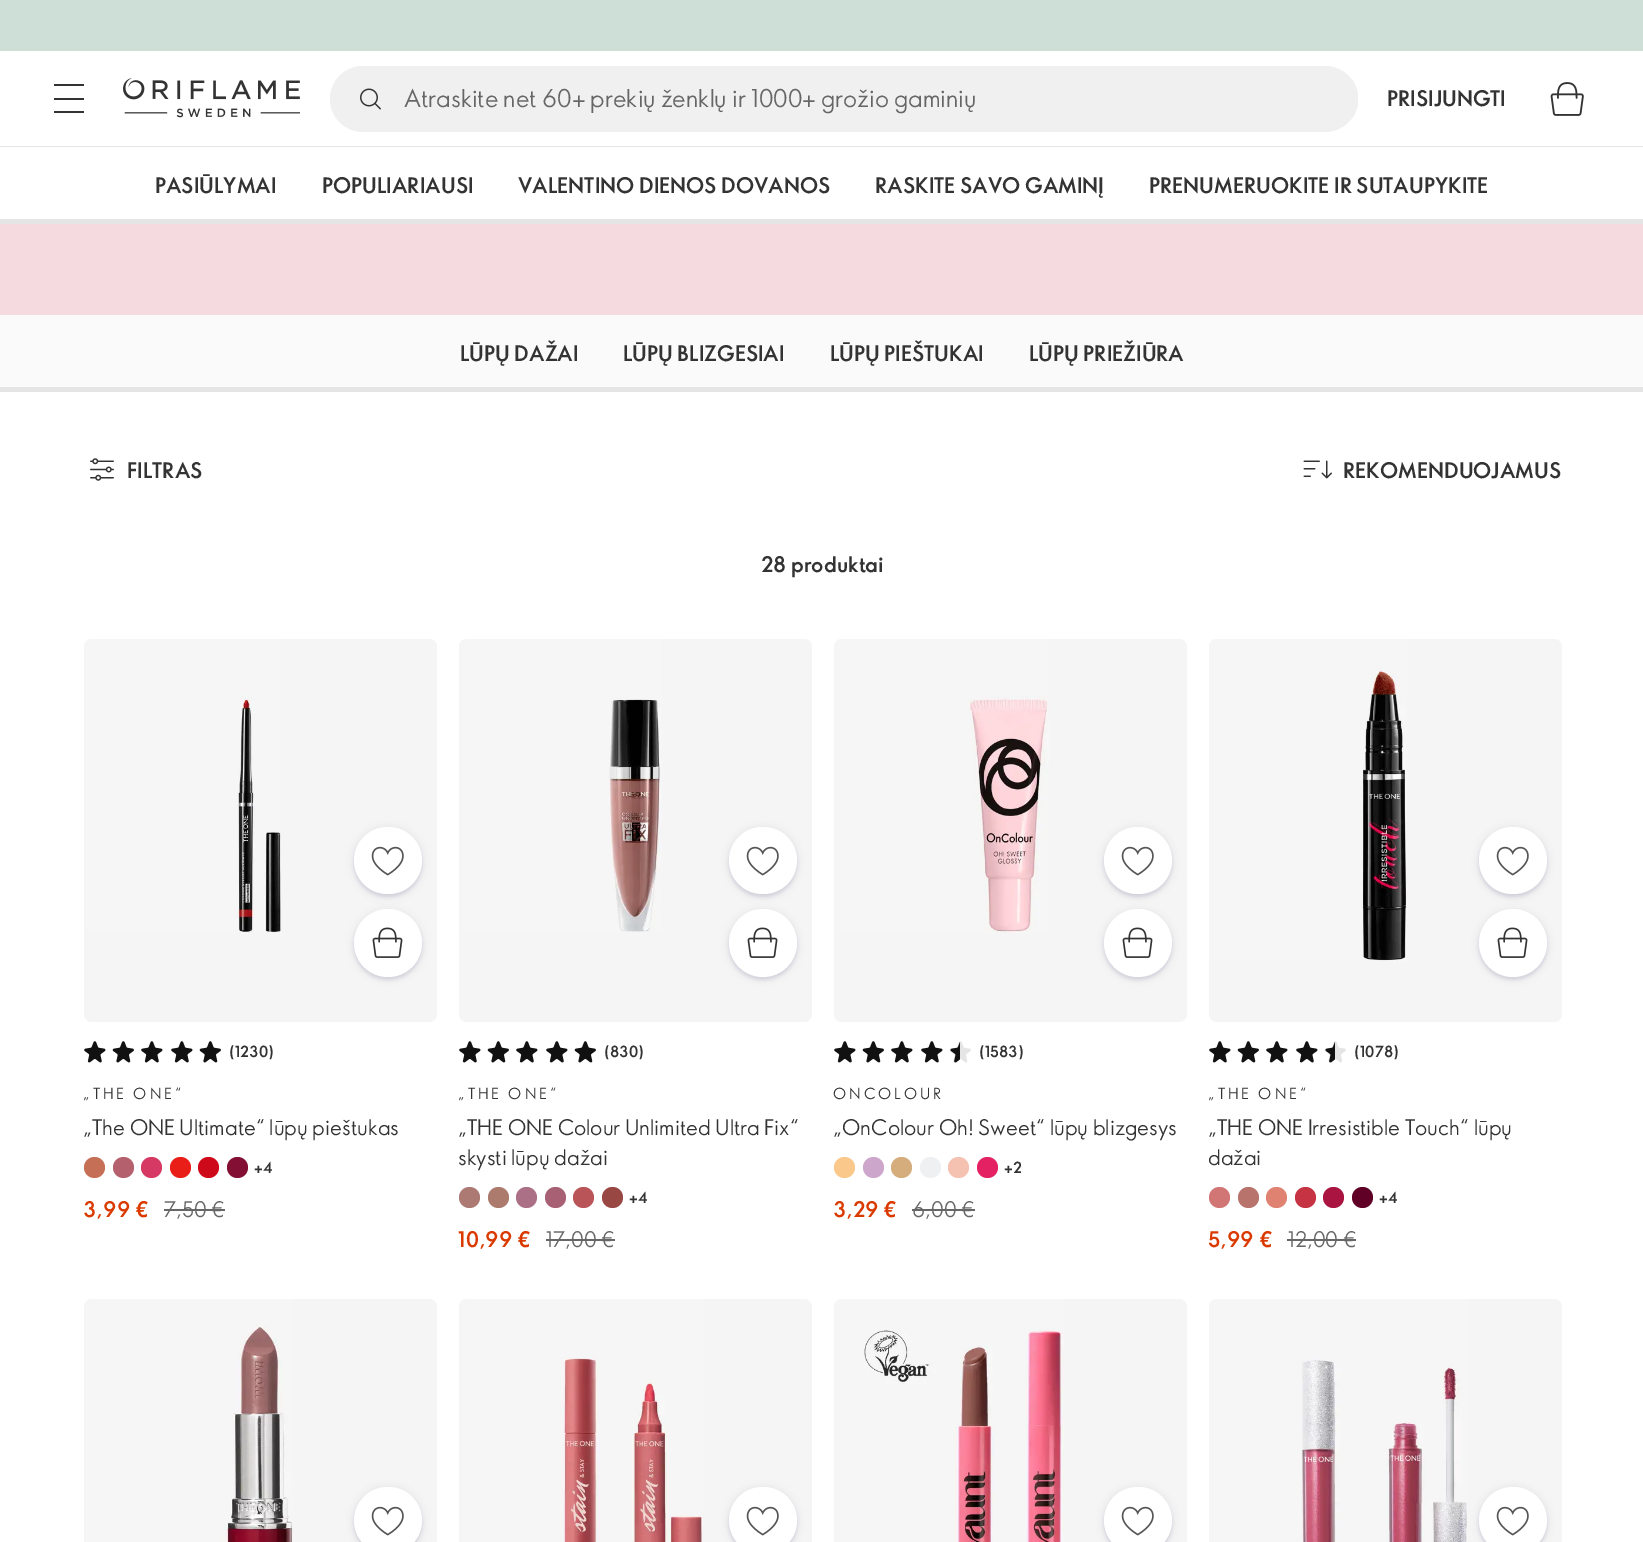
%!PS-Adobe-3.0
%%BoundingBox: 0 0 1643 1542
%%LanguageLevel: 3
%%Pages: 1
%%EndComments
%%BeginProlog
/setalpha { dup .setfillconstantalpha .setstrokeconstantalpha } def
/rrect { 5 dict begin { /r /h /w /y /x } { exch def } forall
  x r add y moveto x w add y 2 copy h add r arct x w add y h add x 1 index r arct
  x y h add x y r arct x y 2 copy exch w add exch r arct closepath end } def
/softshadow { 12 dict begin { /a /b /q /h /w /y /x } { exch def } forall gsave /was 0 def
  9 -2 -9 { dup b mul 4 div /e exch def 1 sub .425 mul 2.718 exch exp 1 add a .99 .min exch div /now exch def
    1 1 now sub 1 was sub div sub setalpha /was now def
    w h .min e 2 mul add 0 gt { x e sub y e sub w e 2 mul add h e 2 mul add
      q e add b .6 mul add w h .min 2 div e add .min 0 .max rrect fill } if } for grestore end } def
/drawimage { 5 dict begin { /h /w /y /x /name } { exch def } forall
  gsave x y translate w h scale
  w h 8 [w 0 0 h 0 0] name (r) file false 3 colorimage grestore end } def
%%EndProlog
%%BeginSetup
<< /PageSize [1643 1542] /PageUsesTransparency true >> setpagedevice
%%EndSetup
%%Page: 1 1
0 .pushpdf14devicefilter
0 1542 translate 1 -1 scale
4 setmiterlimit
1 setgray
0 0 1643 1542 rectfill
0.898 setgray
0 146 1643 1 rectfill
0.808 0.875 0.843 setrgbcolor
0 0 1643 51 rectfill
0.2 setgray
54 84 30 2 rectfill
54 98 30 2 rectfill
54 111 30 2 rectfill
(images/1.raw) 123 78 177 40 drawimage
0.941 setgray
330 66 1028 66 33 rrect fill
(images/2.raw) 360 88 21 22 drawimage
gsave
330 66 1028 66 33 rrect clip newpath
401 80 957 39 rectfill
grestore
(images/3.raw) 1550 82 34 34 drawimage
0.898 setgray
0 219 1643 5 rectfill
0.961 0.855 0.875 setrgbcolor
0 224 1643 91 rectfill
0.98 setgray
0 315 1643 72 rectfill
0.898 setgray
0 387 1643 5 rectfill
(images/4.raw) 90 458 24 23 drawimage
(images/5.raw) 1303 460 29 19 drawimage
0.961 setgray
newpath 92 639 moveto 429 639 lineto 433.5 639 437 642.5 437 647 curveto 437 992 lineto 84 992 lineto 84 647 lineto 84 642.5 87.5 639 92 639 curveto closepath fill
(images/6.raw) 86 639 195 294 drawimage
0 0 0.259 setrgbcolor
354 828 68 68 34 4 0.08 softshadow
354 830 68 67 33.5 1.5 0.08 softshadow
1 setgray
354 827 68 67 33.5 rrect fill
(images/7.raw) 371 846 33 30 drawimage
0 0 0.259 setrgbcolor
354 911 68 67 33.5 4 0.08 softshadow
354 912 68 68 34 1.5 0.08 softshadow
1 setgray
newpath 388 943 34 0 360 arc closepath fill
(images/8.raw) 372 927 31 31 drawimage
0.961 setgray
newpath 84 992 moveto 437 992 lineto 437 1014 lineto 437 1018.5 433.5 1022 429 1022 curveto 92 1022 lineto 87.5 1022 84 1018.5 84 1014 curveto closepath fill
(images/9.raw) 84 1041 22 22 drawimage
(images/10.raw) 112 1041 22 22 drawimage
(images/9.raw) 141 1041 22 22 drawimage
(images/9.raw) 171 1041 22 22 drawimage
(images/10.raw) 199 1041 22 22 drawimage
0.773 0.439 0.337 setrgbcolor
newpath 94.5 1167.5 10.5 0 360 arc closepath fill
0.706 0.376 0.427 setrgbcolor
newpath 123.5 1167.5 10.5 0 360 arc closepath fill
0.839 0.227 0.392 setrgbcolor
newpath 151.5 1167.5 10.5 0 360 arc closepath fill
0.914 0.118 0.094 setrgbcolor
newpath 180.5 1167.5 10.5 0 360 arc closepath fill
0.808 0.035 0.102 setrgbcolor
newpath 208.5 1167.5 10.5 0 360 arc closepath fill
0.514 0.059 0.204 setrgbcolor
newpath 237.5 1167.5 10.5 0 360 arc closepath fill
0.4 setgray
164 1209 61 2 rectfill
0.961 setgray
newpath 467 639 moveto 804 639 lineto 808.5 639 812 642.5 812 647 curveto 812 992 lineto 459 992 lineto 459 647 lineto 459 642.5 462.5 639 467 639 curveto closepath fill
(images/11.raw) 461 639 201 293 drawimage
0 0 0.259 setrgbcolor
729 828 68 68 34 4 0.08 softshadow
729 830 68 67 33.5 1.5 0.08 softshadow
1 setgray
729 827 68 67 33.5 rrect fill
(images/7.raw) 746 846 33 30 drawimage
0 0 0.259 setrgbcolor
729 911 68 67 33.5 4 0.08 softshadow
729 912 68 68 34 1.5 0.08 softshadow
1 setgray
newpath 763 943 34 0 360 arc closepath fill
(images/8.raw) 747 927 31 31 drawimage
0.961 setgray
newpath 459 992 moveto 812 992 lineto 812 1014 lineto 812 1018.5 808.5 1022 804 1022 curveto 467 1022 lineto 462.5 1022 459 1018.5 459 1014 curveto closepath fill
(images/9.raw) 459 1041 22 22 drawimage
(images/10.raw) 487 1041 22 22 drawimage
(images/9.raw) 516 1041 22 22 drawimage
(images/9.raw) 546 1041 22 22 drawimage
(images/10.raw) 574 1041 22 22 drawimage
0.678 0.475 0.451 setrgbcolor
newpath 469.5 1197.5 10.5 0 360 arc closepath fill
0.675 0.482 0.427 setrgbcolor
newpath 498.5 1197.5 10.5 0 360 arc closepath fill
0.671 0.439 0.522 setrgbcolor
newpath 526.5 1197.5 10.5 0 360 arc closepath fill
0.659 0.376 0.459 setrgbcolor
newpath 555.5 1197.5 10.5 0 360 arc closepath fill
0.725 0.329 0.345 setrgbcolor
newpath 583.5 1197.5 10.5 0 360 arc closepath fill
0.6 0.278 0.263 setrgbcolor
newpath 612.5 1197.5 10.5 0 360 arc closepath fill
0.4 setgray
546 1239 69 2 rectfill
0.961 setgray
newpath 842 639 moveto 1179 639 lineto 1183.5 639 1187 642.5 1187 647 curveto 1187 992 lineto 834 992 lineto 834 647 lineto 834 642.5 837.5 639 842 639 curveto closepath fill
(images/12.raw) 836 639 213 294 drawimage
0 0 0.259 setrgbcolor
1104 828 68 68 34 4 0.08 softshadow
1104 830 68 67 33.5 1.5 0.08 softshadow
1 setgray
1104 827 68 67 33.5 rrect fill
(images/7.raw) 1121 846 33 30 drawimage
0 0 0.259 setrgbcolor
1104 911 68 67 33.5 4 0.08 softshadow
1104 912 68 68 34 1.5 0.08 softshadow
1 setgray
newpath 1138 943 34 0 360 arc closepath fill
(images/8.raw) 1122 927 31 31 drawimage
0.961 setgray
newpath 834 992 moveto 1187 992 lineto 1187 1014 lineto 1187 1018.5 1183.5 1022 1179 1022 curveto 842 1022 lineto 837.5 1022 834 1018.5 834 1014 curveto closepath fill
(images/9.raw) 834 1041 22 22 drawimage
(images/10.raw) 862 1041 22 22 drawimage
(images/9.raw) 891 1041 22 22 drawimage
(images/9.raw) 921 1041 22 22 drawimage
(images/13.raw) 949 1041 22 22 drawimage
(images/14.raw) 950 1042 10 21 drawimage
0.98 0.784 0.541 setrgbcolor
newpath 844.5 1167.5 10.5 0 360 arc closepath fill
0.804 0.655 0.796 setrgbcolor
newpath 873.5 1167.5 10.5 0 360 arc closepath fill
0.835 0.675 0.482 setrgbcolor
newpath 901.5 1167.5 10.5 0 360 arc closepath fill
0.937 0.941 0.945 setrgbcolor
newpath 930.5 1167.5 10.5 0 360 arc closepath fill
0.961 0.757 0.69 setrgbcolor
newpath 958.5 1167.5 10.5 0 360 arc closepath fill
0.894 0.133 0.388 setrgbcolor
newpath 987.5 1167.5 10.5 0 360 arc closepath fill
0.4 setgray
912 1209 63 2 rectfill
0.961 setgray
newpath 1217 639 moveto 1554 639 lineto 1558.5 639 1562 642.5 1562 647 curveto 1562 992 lineto 1209 992 lineto 1209 647 lineto 1209 642.5 1212.5 639 1217 639 curveto closepath fill
(images/15.raw) 1211 639 196 322 drawimage
0 0 0.259 setrgbcolor
1479 828 68 68 34 4 0.08 softshadow
1479 830 68 67 33.5 1.5 0.08 softshadow
1 setgray
1479 827 68 67 33.5 rrect fill
(images/7.raw) 1496 846 33 30 drawimage
0 0 0.259 setrgbcolor
1479 911 68 67 33.5 4 0.08 softshadow
1479 912 68 68 34 1.5 0.08 softshadow
1 setgray
newpath 1513 943 34 0 360 arc closepath fill
(images/8.raw) 1497 927 31 31 drawimage
0.961 setgray
newpath 1209 992 moveto 1562 992 lineto 1562 1014 lineto 1562 1018.5 1558.5 1022 1554 1022 curveto 1217 1022 lineto 1212.5 1022 1209 1018.5 1209 1014 curveto closepath fill
(images/9.raw) 1209 1041 22 22 drawimage
(images/10.raw) 1237 1041 22 22 drawimage
(images/9.raw) 1266 1041 22 22 drawimage
(images/9.raw) 1296 1041 22 22 drawimage
(images/13.raw) 1324 1041 22 22 drawimage
(images/14.raw) 1325 1042 10 21 drawimage
0.824 0.459 0.459 setrgbcolor
newpath 1219.5 1197.5 10.5 0 360 arc closepath fill
0.722 0.451 0.427 setrgbcolor
newpath 1248.5 1197.5 10.5 0 360 arc closepath fill
0.875 0.51 0.443 setrgbcolor
newpath 1276.5 1197.5 10.5 0 360 arc closepath fill
0.776 0.204 0.267 setrgbcolor
newpath 1305.5 1197.5 10.5 0 360 arc closepath fill
0.667 0.078 0.255 setrgbcolor
newpath 1333.5 1197.5 10.5 0 360 arc closepath fill
0.38 0 0.149 setrgbcolor
newpath 1362.5 1197.5 10.5 0 360 arc closepath fill
0.4 setgray
1287 1239 69 2 rectfill
0.961 setgray
newpath 92 1299 moveto 429 1299 lineto 433.5 1299 437 1302.5 437 1307 curveto 437 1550 lineto 84 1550 lineto 84 1307 lineto 84 1302.5 87.5 1299 92 1299 curveto closepath fill
(images/16.raw) 86 1299 207 243 drawimage
0 0 0.259 setrgbcolor
354 1488 68 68 34 4 0.08 softshadow
354 1490 68 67 33.5 1.5 0.08 softshadow
1 setgray
354 1487 68 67 33.5 rrect fill
(images/7.raw) 371 1506 33 30 drawimage
0.961 setgray
newpath 467 1299 moveto 804 1299 lineto 808.5 1299 812 1302.5 812 1307 curveto 812 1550 lineto 459 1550 lineto 459 1307 lineto 459 1302.5 462.5 1299 467 1299 curveto closepath fill
(images/17.raw) 461 1299 242 243 drawimage
0 0 0.259 setrgbcolor
729 1488 68 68 34 4 0.08 softshadow
729 1490 68 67 33.5 1.5 0.08 softshadow
1 setgray
729 1487 68 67 33.5 rrect fill
(images/7.raw) 746 1506 33 30 drawimage
0.961 setgray
newpath 842 1299 moveto 1179 1299 lineto 1183.5 1299 1187 1302.5 1187 1307 curveto 1187 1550 lineto 834 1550 lineto 834 1307 lineto 834 1302.5 837.5 1299 842 1299 curveto closepath fill
(images/18.raw) 836 1299 228 243 drawimage
0 0 0.259 setrgbcolor
1104 1488 68 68 34 4 0.08 softshadow
1104 1490 68 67 33.5 1.5 0.08 softshadow
1 setgray
1104 1487 68 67 33.5 rrect fill
(images/7.raw) 1121 1506 33 30 drawimage
0.961 setgray
newpath 1217 1299 moveto 1554 1299 lineto 1558.5 1299 1562 1302.5 1562 1307 curveto 1562 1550 lineto 1209 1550 lineto 1209 1307 lineto 1209 1302.5 1212.5 1299 1217 1299 curveto closepath fill
(images/19.raw) 1211 1299 256 243 drawimage
0 0 0.259 setrgbcolor
1479 1488 68 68 34 4 0.08 softshadow
1479 1490 68 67 33.5 1.5 0.08 softshadow
1 setgray
1479 1487 68 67 33.5 rrect fill
(images/7.raw) 1496 1506 33 30 drawimage
/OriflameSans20-Regular [24 0 0 -24 0 0] selectfont
0.4 setgray
404 107 moveto (Atraskite net 60+ prekių ženklų ir 1000+ grožio gaminių) show
/OriflameSans20-Bold [21 0 0 -21 0 0] selectfont
0.2 setgray
1387 106 moveto (PRISIJUNGTI) show
155 193 moveto (PASIŪLYMAI) show
322 193 moveto (POPULIARIAUSI) show
518 193 moveto (VALENTINO DIENOS DOVANOS) show
875 193 moveto (RASKITE SAVO GAMINĮ) show
1149 193 moveto (PRENUMERUOKITE IR SUTAUPYKITE) show
460 361 moveto (LŪPŲ DAŽAI) show
623 361 moveto (LŪPŲ BLIZGESIAI) show
830 361 moveto (LŪPŲ PIEŠTUKAI) show
1029 361 moveto (LŪPŲ PRIEŽIŪRA) show
127 478 moveto (FILTRAS) show
1343 478 moveto (REKOMENDUOJAMUS) show
761 572 moveto (28 produktai) show
/OriflameSans20-Bold [15 0 0 -15 0 0] selectfont
229 1057 moveto (\(1230\)) show
/OriflameSans20-Regular [15 0 0 -15 0 0] selectfont
83 1099 moveto 3 0 („THE ONE“) ashow
/OriflameSans20-Regular [21 0 0 -21 0 0] selectfont
83 1135 moveto („The ONE Ultimate“ lūpų pieštukas) show
/OriflameSans20-Bold [15 0 0 -15 0 0] selectfont
254 1173 moveto (+4) show
/OriflameSans20-Bold [21 0 0 -21 0 0] selectfont
0.855 0.227 0 setrgbcolor
83 1217 moveto (3,99 €) show
/OriflameSans20-Regular [21 0 0 -21 0 0] selectfont
0.4 setgray
164 1217 moveto (7,50 €) show
/OriflameSans20-Bold [15 0 0 -15 0 0] selectfont
0.2 setgray
604 1057 moveto (\(830\)) show
/OriflameSans20-Regular [15 0 0 -15 0 0] selectfont
458 1099 moveto 3 0 („THE ONE“) ashow
/OriflameSans20-Regular [21 0 0 -21 0 0] selectfont
458 1135 moveto („THE ONE Colour Unlimited Ultra Fix“) show
458 1165 moveto (skysti lūpų dažai) show
/OriflameSans20-Bold [15 0 0 -15 0 0] selectfont
629 1203 moveto (+4) show
/OriflameSans20-Bold [21 0 0 -21 0 0] selectfont
0.855 0.227 0 setrgbcolor
458 1247 moveto (10,99 €) show
/OriflameSans20-Regular [21 0 0 -21 0 0] selectfont
0.4 setgray
546 1247 moveto (17,00 €) show
/OriflameSans20-Bold [15 0 0 -15 0 0] selectfont
0.2 setgray
979 1057 moveto (\(1583\)) show
/OriflameSans20-Regular [15 0 0 -15 0 0] selectfont
833 1099 moveto 3 0 (ONCOLOUR) ashow
/OriflameSans20-Regular [21 0 0 -21 0 0] selectfont
833 1135 moveto („OnColour Oh! Sweet“ lūpų blizgesys) show
/OriflameSans20-Bold [15 0 0 -15 0 0] selectfont
1004 1173 moveto (+2) show
/OriflameSans20-Bold [21 0 0 -21 0 0] selectfont
0.855 0.227 0 setrgbcolor
833 1217 moveto (3,29 €) show
/OriflameSans20-Regular [21 0 0 -21 0 0] selectfont
0.4 setgray
912 1217 moveto (6,00 €) show
/OriflameSans20-Bold [15 0 0 -15 0 0] selectfont
0.2 setgray
1354 1057 moveto (\(1078\)) show
/OriflameSans20-Regular [15 0 0 -15 0 0] selectfont
1208 1099 moveto 3 0 („THE ONE“) ashow
/OriflameSans20-Regular [21 0 0 -21 0 0] selectfont
1208 1135 moveto („THE ONE Irresistible Touch“ lūpų) show
1208 1165 moveto (dažai) show
/OriflameSans20-Bold [15 0 0 -15 0 0] selectfont
1379 1203 moveto (+4) show
/OriflameSans20-Bold [21 0 0 -21 0 0] selectfont
0.855 0.227 0 setrgbcolor
1208 1247 moveto (5,99 €) show
/OriflameSans20-Regular [21 0 0 -21 0 0] selectfont
0.4 setgray
1288 1247 moveto (12,00 €) show
.poppdf14devicefilter showpage
%%EOF
